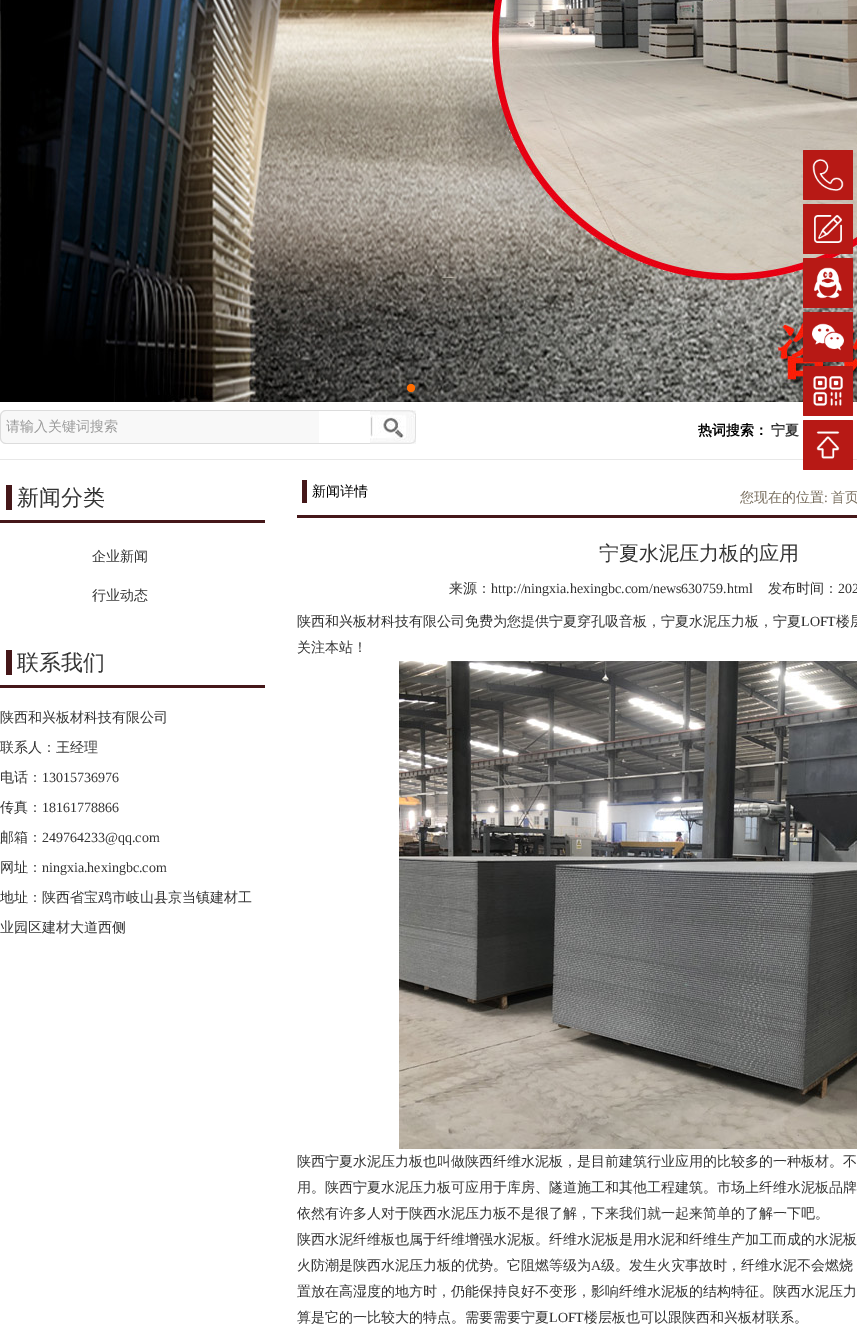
%!PS-Adobe-3.0
%%BoundingBox: 0 0 857 1324
%%LanguageLevel: 3
%%Pages: 1
%%EndComments
%%BeginProlog
/setalpha { dup .setfillconstantalpha .setstrokeconstantalpha } def
/rrect { 5 dict begin { /r /h /w /y /x } { exch def } forall
  x r add y moveto x w add y 2 copy h add r arct x w add y h add x 1 index r arct
  x y h add x y r arct x y 2 copy exch w add exch r arct closepath end } def
/drawimage { 5 dict begin { /h /w /y /x /name } { exch def } forall
  gsave x y translate w h scale
  w h 8 [w 0 0 h 0 0] name (r) file false 3 colorimage grestore end } def
%%EndProlog
%%BeginSetup
<< /PageSize [857 1324] /PageUsesTransparency true >> setpagedevice
%%EndSetup
%%Page: 1 1
0 .pushpdf14devicefilter
0 1324 translate 1 -1 scale
4 setmiterlimit
1 setgray
0 0 857 1324 rectfill
(images/1.raw) 0 0 857 402 drawimage
1 0.427 0 setrgbcolor
newpath 411 388 4 0 360 arc closepath fill
0.2 setalpha
0 setgray
newpath 429 388 4 0 360 arc closepath fill
newpath 447 388 4 0 360 arc closepath fill
1 setalpha
0.91 setgray
0 459 857 1 rectfill
0.973 setgray
newpath 6 410 moveto 319 410 lineto 319 444 lineto 6 444 lineto 2.5 444 0 441.5 0 438 curveto 0 416 lineto 0 412.5 2.5 410 6 410 curveto closepath fill
0.863 setgray
newpath 6 410 moveto 319 410 lineto 319 444 lineto 6 444 lineto 3 444 0 441 0 438 curveto 0 416 lineto 0 413 3 410 6 410 curveto closepath 6 411 moveto 319 411 lineto 319 443 lineto 6 443 lineto 3 443 1 441 1 438 curveto 1 416 lineto 1 413 3 411 6 411 curveto closepath eofill
319 410 51 1 rectfill
319 443 51 1 rectfill
(images/2.raw) 370 410 46 34 drawimage
0.718 0.098 0.082 setrgbcolor
803 150 50 50 1 rrect fill
(images/3.raw) 812 159 32 32 drawimage
803 204 50 50 1 rrect fill
(images/4.raw) 814 215 28 28 drawimage
803 258 50 50 1 rrect fill
(images/5.raw) 814 267 28 32 drawimage
803 312 50 50 1 rrect fill
(images/6.raw) 812 323 32 28 drawimage
803 366 50 50 1 rrect fill
(images/7.raw) 813 376 30 30 drawimage
803 420 50 50 1 rrect fill
(images/8.raw) 816 431 24 28 drawimage
0.271 0.09 0.098 setrgbcolor
0 520 265 3 rectfill
6 485 6 25 rectfill
0 685 265 3 rectfill
6 650 6 25 rectfill
297 515 560 3 rectfill
302 480 5 23 rectfill
(images/9.raw) 399 661 458 488 drawimage
/WenQuanYiZenHei-Medium [14 0 0 -14 0 0] selectfont
0.604 setgray
6 431 moveto (请输入关键词搜索) show
/WenQuanYiZenHei-Bold [14 0 0 -14 0 0] selectfont
0 setgray
698 435 moveto (热词搜索：) show
0.2 setgray
771 435 moveto (宁夏) show
/WenQuanYiZenHei-Medium [22 0 0 -22 0 0] selectfont
17 505 moveto (新闻分类) show
/WenQuanYiZenHei-Medium [14 0 0 -14 0 0] selectfont
92 561 moveto (企业新闻) show
92 600 moveto (行业动态) show
/WenQuanYiZenHei-Medium [22 0 0 -22 0 0] selectfont
17 670 moveto (联系我们) show
/WenQuanYiZenHei-Medium [14 0 0 -14 0 0] selectfont
0 722 moveto (陕西和兴板材科技有限公司) show
0 752 moveto (联系人：王经理) show
0 782 moveto (电话：) show
/LiberationSerif-Regular [14 0 0 -14 0 0] selectfont
42 782 moveto (13015736976) show
/WenQuanYiZenHei-Medium [14 0 0 -14 0 0] selectfont
0 812 moveto (传真：) show
/LiberationSerif-Regular [14 0 0 -14 0 0] selectfont
42 812 moveto (18161778866) show
/WenQuanYiZenHei-Medium [14 0 0 -14 0 0] selectfont
0 842 moveto (邮箱：) show
/LiberationSerif-Regular [14 0 0 -14 0 0] selectfont
42 842 moveto (249764233@qq.com) show
/WenQuanYiZenHei-Medium [14 0 0 -14 0 0] selectfont
0 872 moveto (网址：) show
/LiberationSerif-Regular [14 0 0 -14 0 0] selectfont
42 872 moveto (ningxia.hexingbc.com) show
/WenQuanYiZenHei-Medium [14 0 0 -14 0 0] selectfont
0 902 moveto (地址：陕西省宝鸡市岐山县京当镇建材工) show
0 932 moveto (业园区建材大道西侧) show
0 setgray
312 496 moveto (新闻详情) show
0.459 0.416 0.353 setrgbcolor
740 502 moveto (您现在的位置) show
/LiberationSerif-Regular [14 0 0 -14 0 0] selectfont
824 502 moveto (:) show
/WenQuanYiZenHei-Medium [14 0 0 -14 0 0] selectfont
831 502 moveto (首页) show
/WenQuanYiZenHei-Medium [20 0 0 -20 0 0] selectfont
0.2 setgray
599 560 moveto (宁夏水泥压力板的应用) show
/WenQuanYiZenHei-Medium [14 0 0 -14 0 0] selectfont
449 593 moveto (来源：) show
/LiberationSerif-Regular [14 0 0 -14 0 0] selectfont
491 593 moveto (http://ningxia.hexingbc.com/news630759.html) show
/WenQuanYiZenHei-Medium [14 0 0 -14 0 0] selectfont
768 593 moveto (发布时间：) show
/LiberationSerif-Regular [14 0 0 -14 0 0] selectfont
838 593 moveto (202) show
/WenQuanYiZenHei-Medium [14 0 0 -14 0 0] selectfont
297 626 moveto (陕西和兴板材科技有限公司免费为您提供宁夏穿孔吸音板，宁夏水泥压力板，宁夏) show
/LiberationSerif-Regular [14 0 0 -14 0 0] selectfont
801 626 moveto (LOFT) show
/WenQuanYiZenHei-Medium [14 0 0 -14 0 0] selectfont
836 626 moveto (楼层) show
297 652 moveto (关注本站！) show
297 1166 moveto (陕西宁夏水泥压力板也叫做陕西纤维水泥板，是目前建筑行业应用的比较多的一种板材。不) show
297 1192 moveto (用。陕西宁夏水泥压力板可应用于库房、隧道施工和其他工程建筑。市场上纤维水泥板品牌) show
297 1218 moveto (依然有许多人对于陕西水泥压力板不是很了解，下来我们就一起来简单的了解一下吧。) show
297 1244 moveto (陕西水泥纤维板也属于纤维增强水泥板。纤维水泥板是用水泥和纤维生产加工而成的水泥板) show
297 1270 moveto (火防潮是陕西水泥压力板的优势。它阻燃等级为) show
/LiberationSerif-Regular [14 0 0 -14 0 0] selectfont
591 1270 moveto (A) show
/WenQuanYiZenHei-Medium [14 0 0 -14 0 0] selectfont
601 1270 moveto (级。发生火灾事故时，纤维水泥不会燃烧) show
297 1296 moveto (置放在高湿度的地方时，仍能保持良好不变形，影响纤维水泥板的结构特征。陕西水泥压力) show
297 1322 moveto (算是它的一比较大的特点。需要需要宁夏) show
/LiberationSerif-Regular [14 0 0 -14 0 0] selectfont
549 1322 moveto (LOFT) show
/WenQuanYiZenHei-Medium [14 0 0 -14 0 0] selectfont
584 1322 moveto (楼层板也可以跟陕西和兴板材联系。) show
.poppdf14devicefilter showpage
%%EOF
